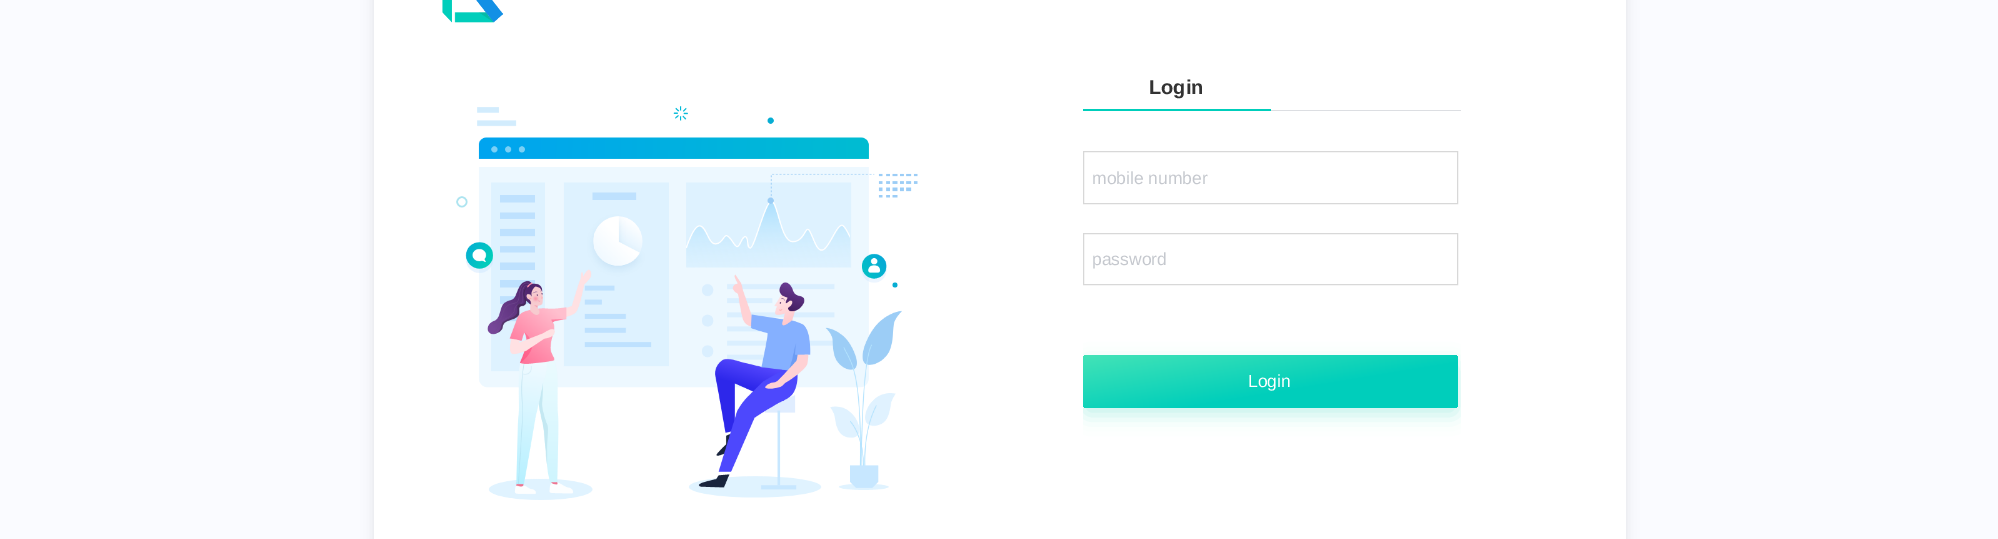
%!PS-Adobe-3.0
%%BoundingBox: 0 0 1998 539
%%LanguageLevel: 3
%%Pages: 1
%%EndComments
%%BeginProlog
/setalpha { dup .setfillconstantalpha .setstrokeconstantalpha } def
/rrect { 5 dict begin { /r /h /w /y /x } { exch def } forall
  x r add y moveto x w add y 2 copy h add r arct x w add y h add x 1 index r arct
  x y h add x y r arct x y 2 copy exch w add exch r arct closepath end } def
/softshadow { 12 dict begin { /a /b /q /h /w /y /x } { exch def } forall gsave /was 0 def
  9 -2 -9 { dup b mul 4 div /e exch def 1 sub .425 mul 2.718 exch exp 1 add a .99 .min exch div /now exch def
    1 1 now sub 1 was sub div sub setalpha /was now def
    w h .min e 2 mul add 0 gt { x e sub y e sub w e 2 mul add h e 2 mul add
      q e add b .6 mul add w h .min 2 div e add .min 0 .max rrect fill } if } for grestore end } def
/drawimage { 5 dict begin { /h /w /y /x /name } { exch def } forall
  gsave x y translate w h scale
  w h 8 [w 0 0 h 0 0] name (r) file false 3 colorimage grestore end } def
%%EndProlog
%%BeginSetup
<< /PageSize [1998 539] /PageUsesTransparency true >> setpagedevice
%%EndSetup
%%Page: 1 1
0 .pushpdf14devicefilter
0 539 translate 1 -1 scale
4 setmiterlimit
0.98 0.984 1 setrgbcolor
0 0 1998 539 rectfill
0.314 setgray
374 -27 1252 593 9 6 0.15 softshadow
1 setgray
374 0 1252 539 rectfill
(images/1.raw) 442 0 62 23 drawimage
(images/2.raw) 456 106 462 394 drawimage
0.863 0.871 0.886 setrgbcolor
1271 110 190 1 rectfill
0 0.808 0.733 setrgbcolor
1083 109 188 2 rectfill
0.847 setgray
1083.5 151.5 374 52 rectstroke
1083.5 233.5 374 51 rectstroke
gsave
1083 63 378 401 rectclip
0 0.769 0.698 setrgbcolor
1083 363 375 52 4 9.5 0.24 softshadow
grestore
gsave 1083 355 375 53 4 rrect clip newpath
<< /ShadingType 2 /ColorSpace /DeviceRGB /Coords [1279 436 1261 327] /Extend [true true] /Function << /FunctionType 3 /Domain [0 1] /Functions [<< /FunctionType 2 /Domain [0 1] /C0 [0 0.808 0.733] /C1 [0 0.808 0.733] /N 1 >> << /FunctionType 2 /Domain [0 1] /C0 [0 0.808 0.733] /C1 [0.259 0.89 0.718] /N 1 >>] /Bounds [0.39] /Encode [0 1 0 1] >> >> shfill grestore
/LiberationSans-Bold [20 0 0 -20 0 0] selectfont
0.2 setgray
1149 94 moveto (Login) show
/LiberationSans-Regular [17.5 0 0 -17.5 0 0] selectfont
0.773 0.784 0.808 setrgbcolor
1092 184 moveto (mobile number) show
1092 265 moveto (password) show
1 setgray
1248 387 moveto (Login) show
.poppdf14devicefilter showpage
%%EOF
